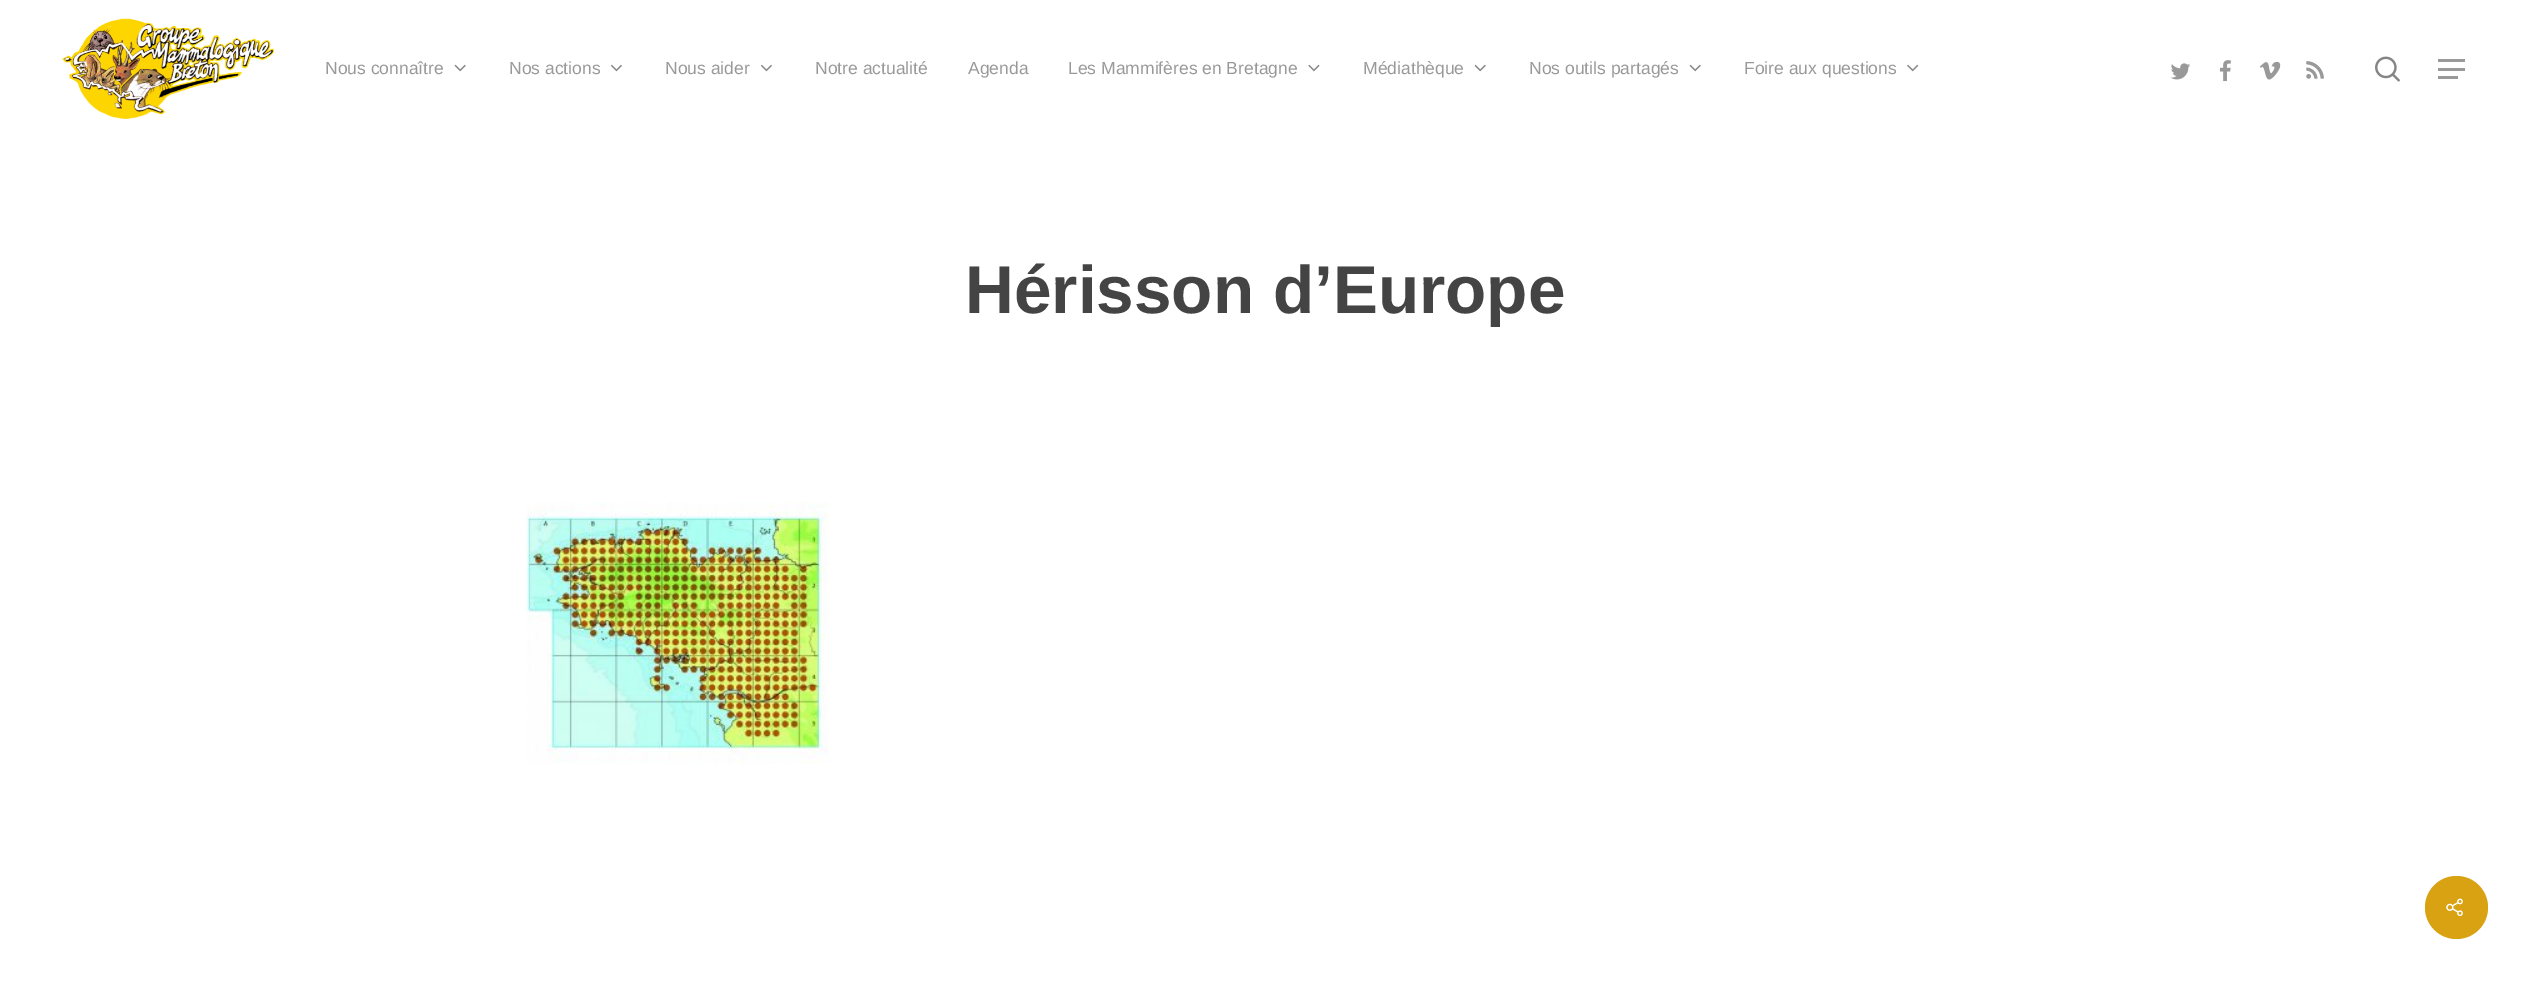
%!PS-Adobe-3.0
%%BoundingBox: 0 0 2529 981
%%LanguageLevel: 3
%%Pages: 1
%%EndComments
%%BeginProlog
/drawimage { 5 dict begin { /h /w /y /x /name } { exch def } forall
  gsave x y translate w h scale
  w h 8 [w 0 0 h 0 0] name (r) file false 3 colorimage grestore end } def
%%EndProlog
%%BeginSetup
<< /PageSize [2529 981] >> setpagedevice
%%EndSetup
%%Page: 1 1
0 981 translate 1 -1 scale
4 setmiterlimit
1 setgray
0 0 2529 981 rectfill
(images/1.raw) 62 18 212 101 drawimage
(images/2.raw) 454 64 12 8 drawimage
(images/3.raw) 610 64 12 8 drawimage
(images/3.raw) 760 64 12 8 drawimage
(images/4.raw) 1308 64 12 8 drawimage
(images/2.raw) 1474 64 12 8 drawimage
(images/2.raw) 1689 64 12 8 drawimage
(images/5.raw) 1907 64 12 8 drawimage
(images/6.raw) 2170 63 21 17 drawimage
(images/7.raw) 2219 60 12 22 drawimage
(images/8.raw) 2259 61 22 19 drawimage
(images/9.raw) 2306 61 18 18 drawimage
(images/10.raw) 2375 56 25 26 drawimage
0.6 setgray
2438 59 27 3 rectfill
2438 76 20 3 rectfill
2438 68 27 3 rectfill
(images/11.raw) 526 502 303 262 drawimage
0.847 0.635 0.071 setrgbcolor
newpath 2456.5 907.5 31.5 0 360 arc closepath fill
(images/12.raw) 2446 898 17 19 drawimage
/LiberationSans-Regular [17.5 0 0 -17.5 0 0] selectfont
0.6 setgray
325 74 moveto (Nous connaître) show
509 74 moveto (Nos actions) show
665 74 moveto (Nous aider) show
815 74 moveto (Notre actualité) show
968 74 moveto (Agenda) show
1068 74 moveto (Les Mammifères en Bretagne) show
1363 74 moveto (Médiathèque) show
1529 74 moveto (Nos outils partagés) show
1744 74 moveto (Foire aux questions) show
/LiberationSans-Bold [67.5 0 0 -67.5 0 0] selectfont
0.267 setgray
965 313 moveto (Hérisson d’Europe) show
showpage
%%EOF
